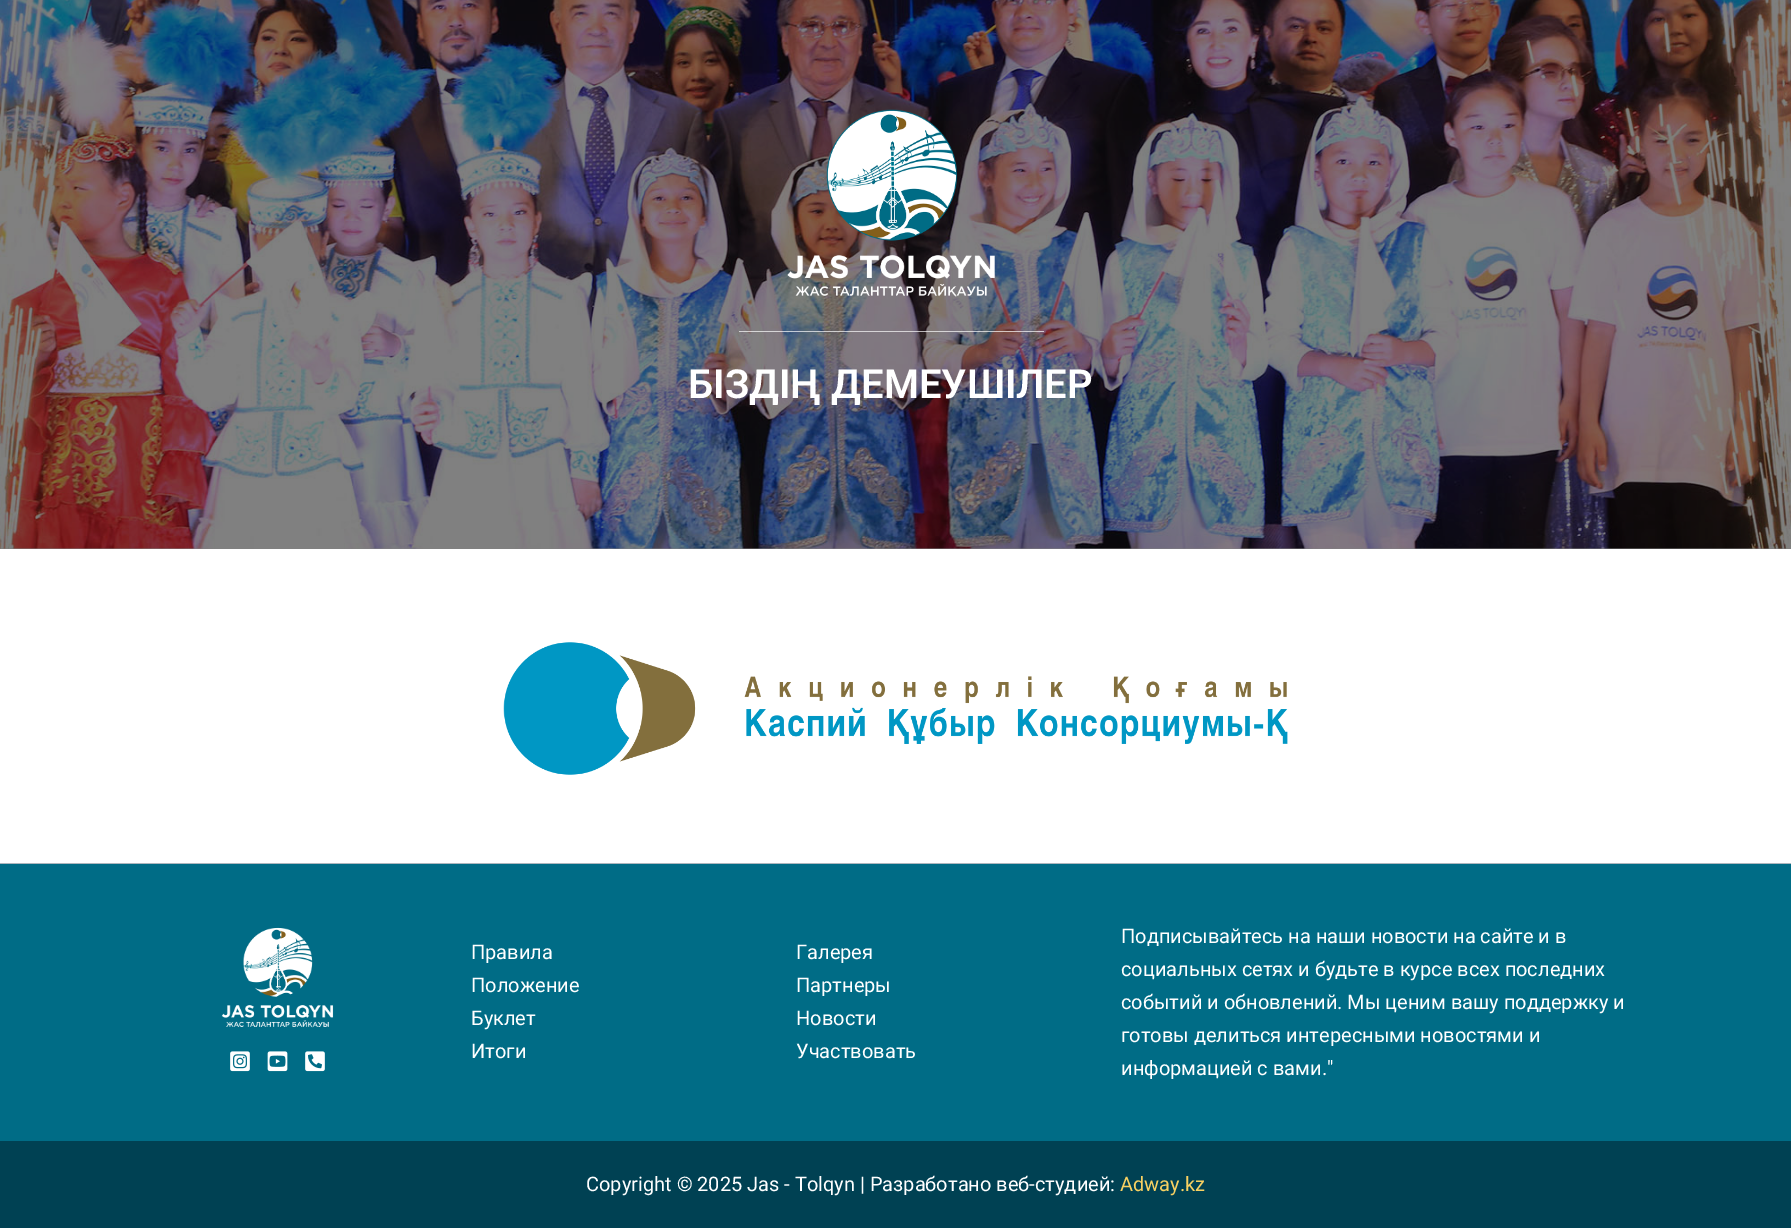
%!PS-Adobe-3.0
%%BoundingBox: 0 0 1791 1228
%%LanguageLevel: 3
%%Pages: 1
%%EndComments
%%BeginProlog
/setalpha { dup .setfillconstantalpha .setstrokeconstantalpha } def
/drawimage { 5 dict begin { /h /w /y /x /name } { exch def } forall
  gsave x y translate w h scale
  w h 8 [w 0 0 h 0 0] name (r) file false 3 colorimage grestore end } def
%%EndProlog
%%BeginSetup
<< /PageSize [1791 1228] /PageUsesTransparency true >> setpagedevice
%%EndSetup
%%Page: 1 1
0 .pushpdf14devicefilter
0 1228 translate 1 -1 scale
4 setmiterlimit
1 setgray
0 0 1791 1228 rectfill
0.502 setgray
0 548 1791 1 rectfill
(images/1.raw) 0 0 1791 549 drawimage
(images/2.raw) 787 109 208 188 drawimage
0.68 setalpha
1 setgray
739 331 305 1 rectfill
1 setalpha
(images/3.raw) 503 642 785 133 drawimage
0 0.424 0.525 setrgbcolor
0 864 1791 277 rectfill
0.678 0.714 0.745 setrgbcolor
0 863 1791 1 rectfill
(images/4.raw) 221 927 113 101 drawimage
(images/5.raw) 230 1051 20 21 drawimage
(images/6.raw) 267 1051 21 21 drawimage
(images/7.raw) 305 1051 20 21 drawimage
0 0.255 0.325 setrgbcolor
0 1141 1791 87 rectfill
/Roboto-SemiBold [40 0 0 -40 0 0] selectfont
1 setgray
688 398 moveto (БІЗДІҢ ДЕМЕУШІЛЕР) show
/Roboto-Regular [20 0 0 -20 0 0] selectfont
471 959 moveto (Правила) show
471 992 moveto (Положение) show
471 1025 moveto (Буклет) show
471 1058 moveto (Итоги) show
796 959 moveto (Галерея) show
796 992 moveto (Партнеры) show
796 1025 moveto (Новости) show
796 1058 moveto (Участвовать) show
1121 943 moveto (Подписывайтесь на наши новости на сайте и в) show
1121 976 moveto (социальных сетях и будьте в курсе всех последних) show
1121 1009 moveto (событий и обновлений. Мы ценим вашу поддержку и) show
1121 1042 moveto (готовы делиться интересными новостями и) show
1121 1075 moveto (информацией с вами.") show
586 1191 moveto (Copyright © 2025 Jas - Tolqyn | Разработано веб-студией:) show
0.973 0.82 0.384 setrgbcolor
1120 1191 moveto (Adway.kz) show
.poppdf14devicefilter showpage
%%EOF
